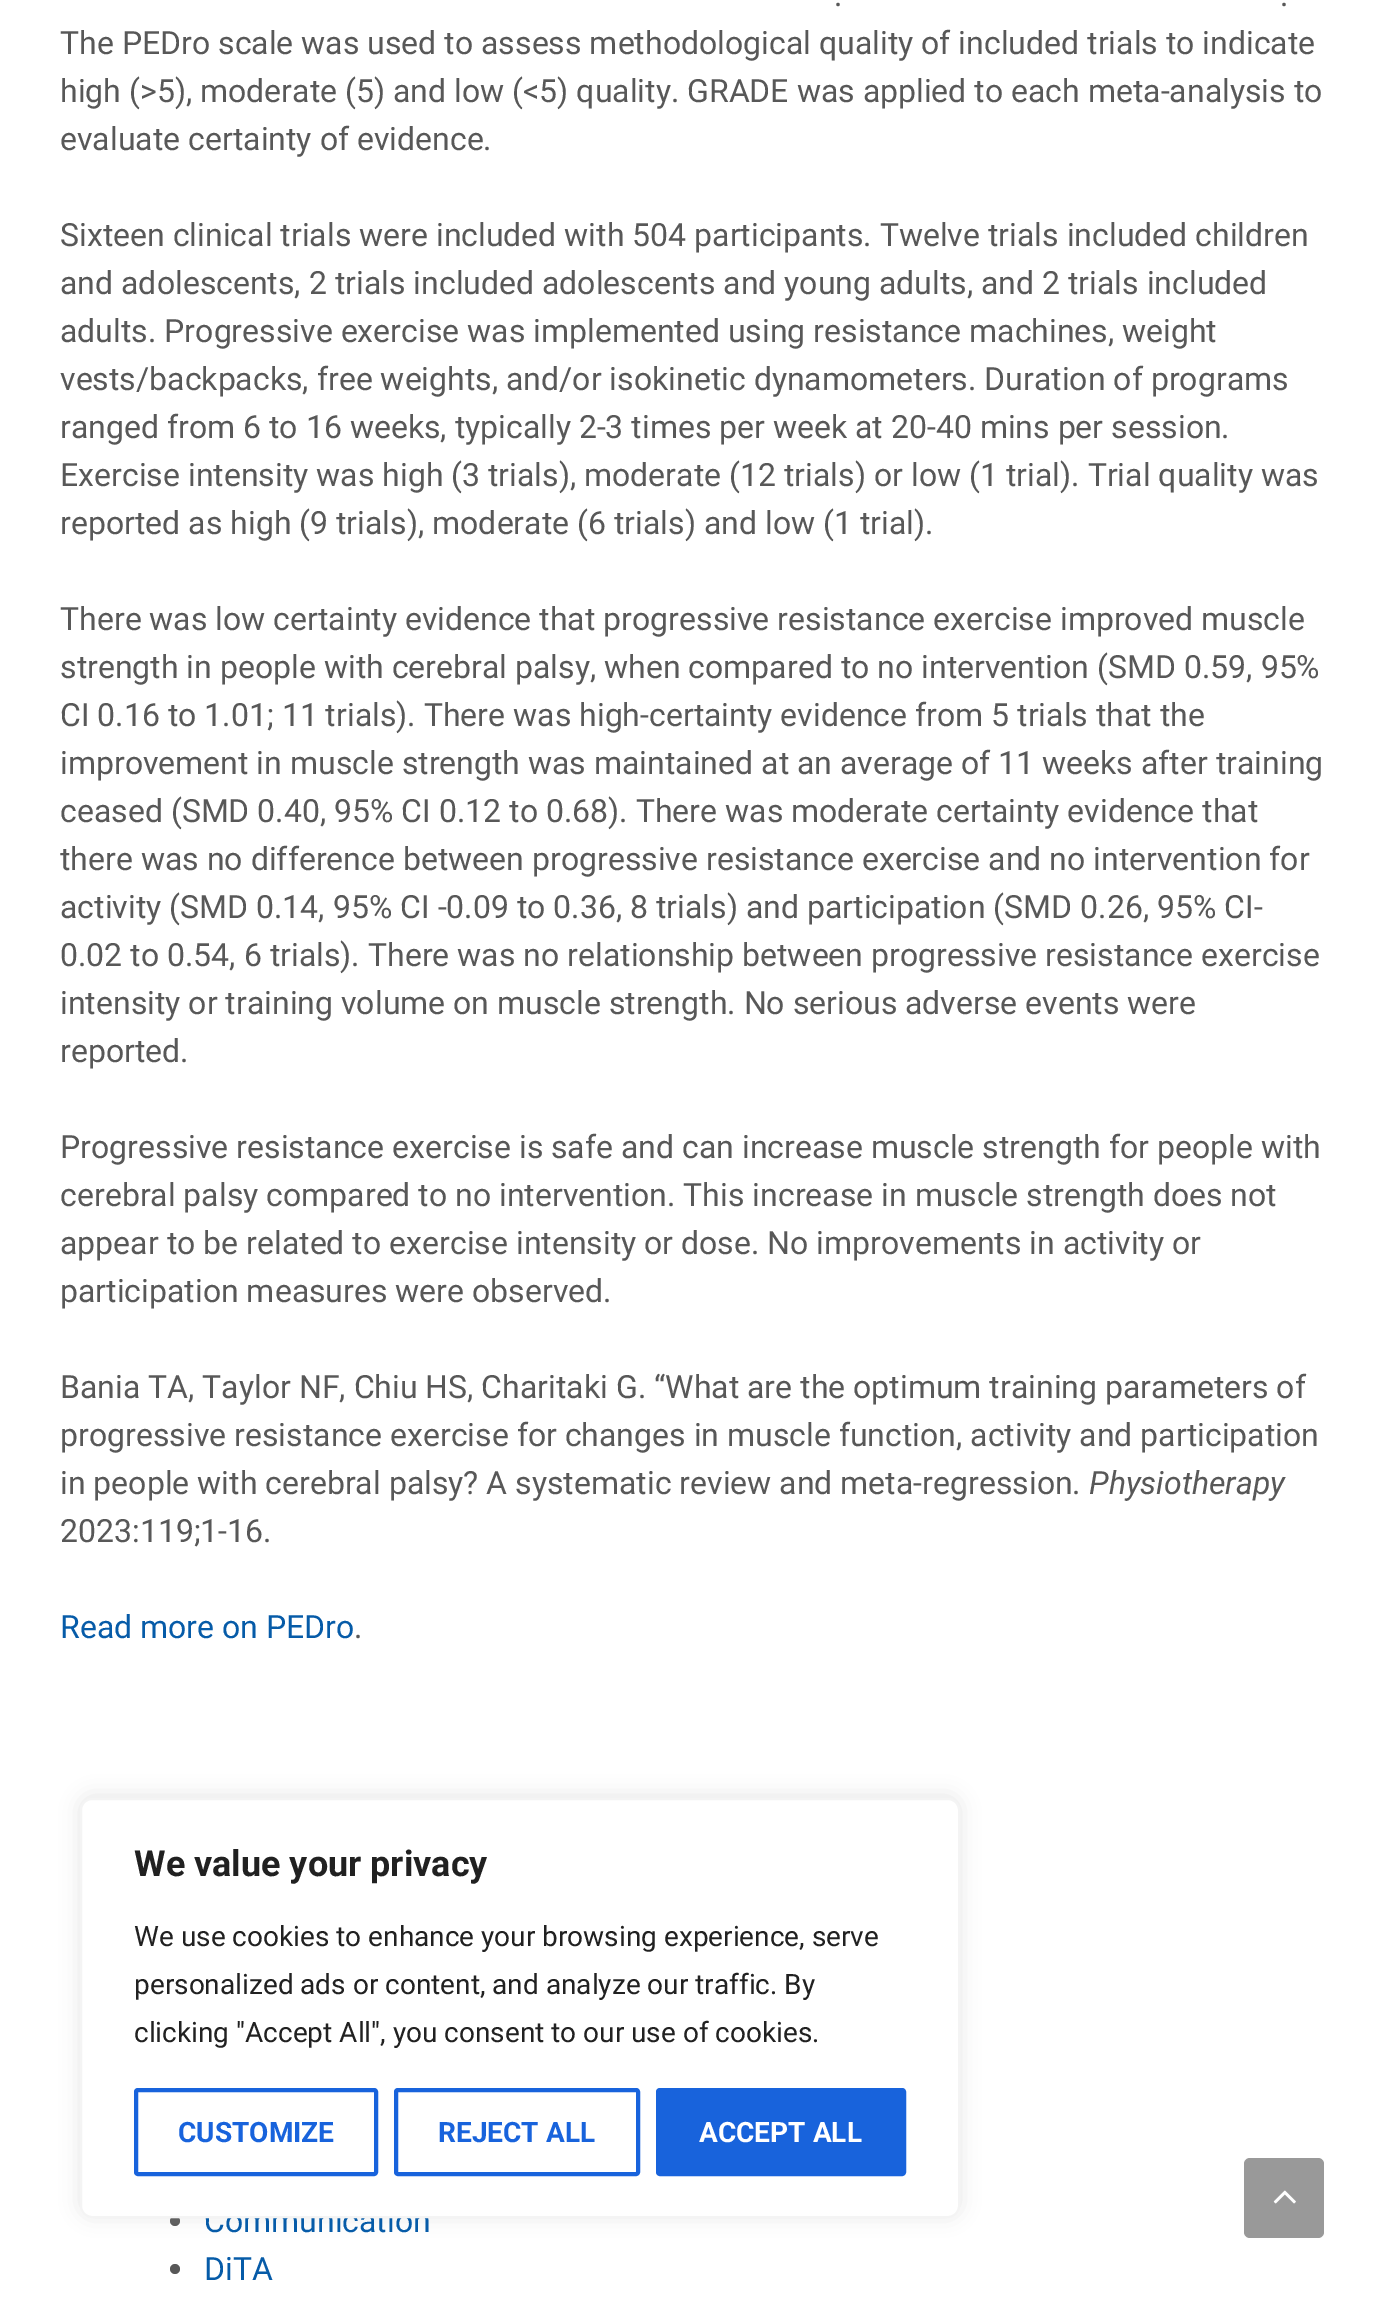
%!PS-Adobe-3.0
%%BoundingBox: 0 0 1383 2298
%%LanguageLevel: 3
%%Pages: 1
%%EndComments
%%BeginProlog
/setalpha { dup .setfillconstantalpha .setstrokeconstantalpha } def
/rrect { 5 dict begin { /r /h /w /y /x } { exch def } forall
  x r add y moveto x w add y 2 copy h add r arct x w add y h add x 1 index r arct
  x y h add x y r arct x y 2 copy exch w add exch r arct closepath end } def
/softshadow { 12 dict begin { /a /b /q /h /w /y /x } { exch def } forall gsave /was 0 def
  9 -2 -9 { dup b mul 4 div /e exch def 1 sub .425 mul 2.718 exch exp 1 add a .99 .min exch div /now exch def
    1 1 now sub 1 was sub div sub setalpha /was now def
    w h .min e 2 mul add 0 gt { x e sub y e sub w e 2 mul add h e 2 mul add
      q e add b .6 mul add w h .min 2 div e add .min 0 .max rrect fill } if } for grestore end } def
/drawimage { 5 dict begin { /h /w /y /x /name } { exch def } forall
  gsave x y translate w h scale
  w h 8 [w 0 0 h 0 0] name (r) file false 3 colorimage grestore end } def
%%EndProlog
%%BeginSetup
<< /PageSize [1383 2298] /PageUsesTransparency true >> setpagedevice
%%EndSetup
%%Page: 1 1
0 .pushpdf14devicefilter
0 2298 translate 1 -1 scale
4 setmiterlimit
1 setgray
0 0 1383 2298 rectfill
0.345 setgray
newpath 175 2221 5 0 360 arc closepath fill
newpath 175 2269 5 0 360 arc closepath fill
0.675 0.671 0.671 setrgbcolor
80 1796 880 420 12 10 0.3 softshadow
0.6 setgray
1244 2158 80 80 6 rrect fill
(images/1.raw) 1273 2190 23 14 drawimage
/Roboto-Regular [32 0 0 -32 0 0] selectfont
0.345 setgray
834 6 moveto (.) show
1280 6 moveto (.) show
60 54 moveto (The PEDro scale was used to assess methodological quality of included trials to indicate) show
60 102 moveto (high \(>5\), moderate \(5\) and low \(<5\) quality. GRADE was applied to each meta-analysis to) show
60 150 moveto (evaluate certainty of evidence.) show
60 246 moveto (Sixteen clinical trials were included with 504 participants. Twelve trials included children) show
60 294 moveto (and adolescents, 2 trials included adolescents and young adults, and 2 trials included) show
60 342 moveto (adults. Progressive exercise was implemented using resistance machines, weight) show
60 390 moveto (vests/backpacks, free weights, and/or isokinetic dynamometers. Duration of programs) show
60 438 moveto (ranged from 6 to 16 weeks, typically 2-3 times per week at 20-40 mins per session.) show
60 486 moveto (Exercise intensity was high \(3 trials\), moderate \(12 trials\) or low \(1 trial\). Trial quality was) show
60 534 moveto (reported as high \(9 trials\), moderate \(6 trials\) and low \(1 trial\).) show
60 630 moveto (There was low certainty evidence that progressive resistance exercise improved muscle) show
60 678 moveto (strength in people with cerebral palsy, when compared to no intervention \(SMD 0.59, 95%) show
60 726 moveto (CI 0.16 to 1.01; 11 trials\). There was high-certainty evidence from 5 trials that the) show
60 774 moveto (improvement in muscle strength was maintained at an average of 11 weeks after training) show
60 822 moveto (ceased \(SMD 0.40, 95% CI 0.12 to 0.68\). There was moderate certainty evidence that) show
60 870 moveto (there was no difference between progressive resistance exercise and no intervention for) show
60 918 moveto (activity \(SMD 0.14, 95% CI -0.09 to 0.36, 8 trials\) and participation \(SMD 0.26, 95% CI-) show
60 966 moveto (0.02 to 0.54, 6 trials\). There was no relationship between progressive resistance exercise) show
60 1014 moveto (intensity or training volume on muscle strength. No serious adverse events were) show
60 1062 moveto (reported.) show
60 1158 moveto (Progressive resistance exercise is safe and can increase muscle strength for people with) show
60 1206 moveto (cerebral palsy compared to no intervention. This increase in muscle strength does not) show
60 1254 moveto (appear to be related to exercise intensity or dose. No improvements in activity or) show
60 1302 moveto (participation measures were observed.) show
60 1398 moveto (Bania TA, Taylor NF, Chiu HS, Charitaki G. “What are the optimum training parameters of) show
60 1446 moveto (progressive resistance exercise for changes in muscle function, activity and participation) show
60 1494 moveto (in people with cerebral palsy? A systematic review and meta-regression.) show
/Roboto-Italic [32 0 0 -32 0 0] selectfont
1089 1494 moveto (Physiotherapy) show
/Roboto-Regular [32 0 0 -32 0 0] selectfont
60 1542 moveto (2023:119;1-16.) show
0.024 0.357 0.659 setrgbcolor
60 1638 moveto (Read more on PEDro) show
0.345 setgray
354 1638 moveto (.) show
0.024 0.357 0.659 setrgbcolor
204 2232 moveto (Communication) show
204 2280 moveto (DiTA) show
1 setgray
81 1799 878 418 11 rrect gsave fill grestore
0.957 setgray
2 setlinewidth
stroke
/Roboto-Bold [36 0 0 -36 0 0] selectfont
0.129 setgray
134 1876 moveto (We value your privacy) show
/Roboto-Regular [28 0 0 -28 0 0] selectfont
134 1946 moveto (We use cookies to enhance your browsing experience, serve) show
134 1994 moveto (personalized ads or content, and analyze our traffic. By) show
134 2042 moveto (clicking "Accept All", you consent to our use of cookies.) show
0.094 0.388 0.863 setrgbcolor
4 setlinewidth
136 2090 240 84 2 rrect stroke
/Roboto-Bold [28 0 0 -28 0 0] selectfont
178 2142 moveto (CUSTOMIZE) show
396 2090 242 84 2 rrect stroke
438 2142 moveto (REJECT ALL) show
658 2090 246 84 2 rrect gsave fill grestore
stroke
1 setgray
699 2142 moveto (ACCEPT ALL) show
.poppdf14devicefilter showpage
%%EOF
